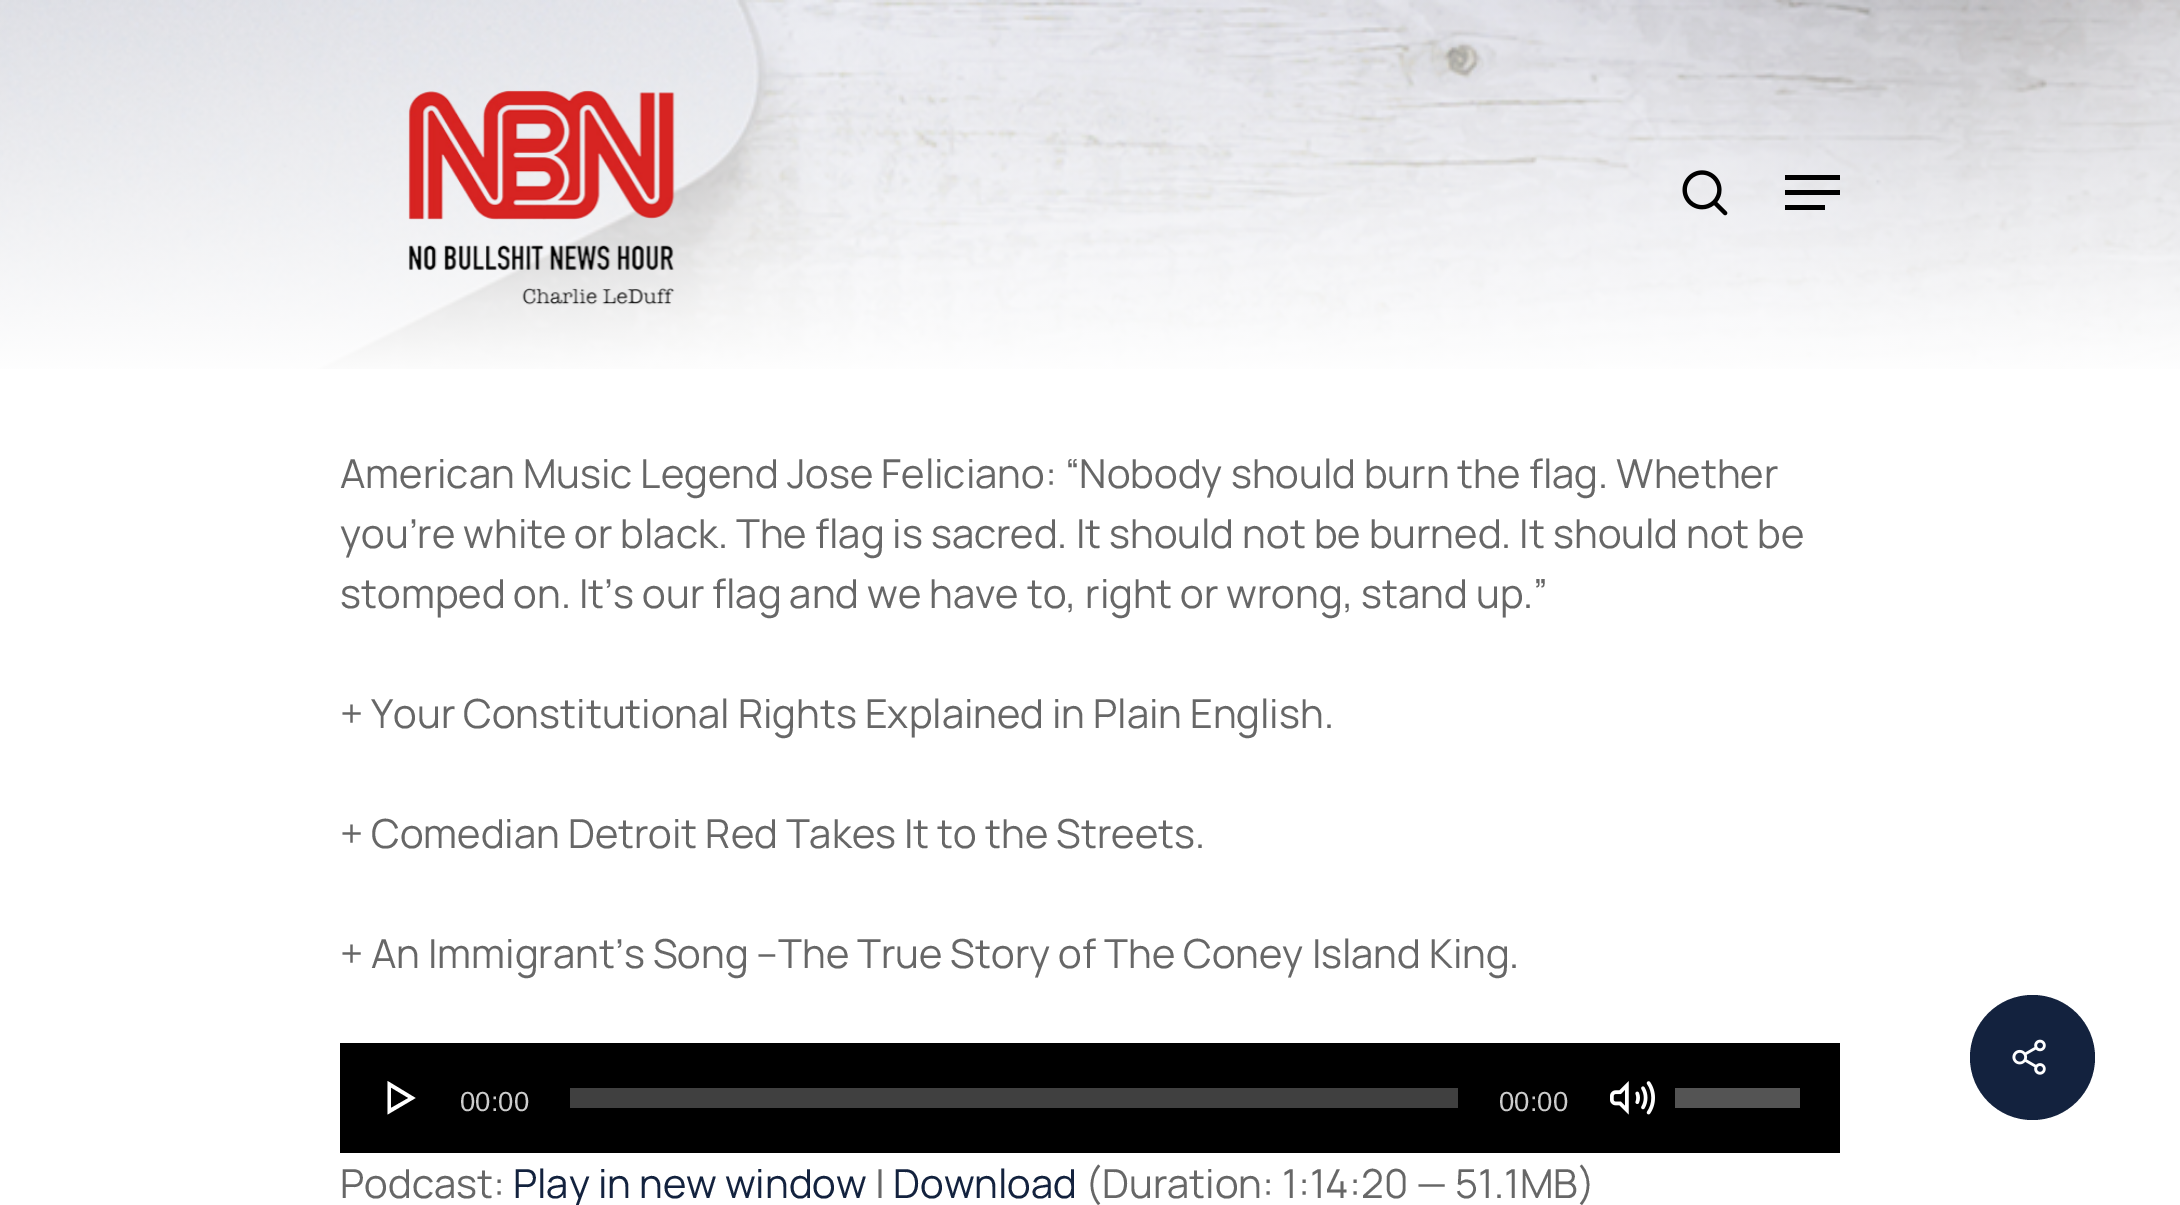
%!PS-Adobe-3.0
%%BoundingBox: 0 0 2180 1205
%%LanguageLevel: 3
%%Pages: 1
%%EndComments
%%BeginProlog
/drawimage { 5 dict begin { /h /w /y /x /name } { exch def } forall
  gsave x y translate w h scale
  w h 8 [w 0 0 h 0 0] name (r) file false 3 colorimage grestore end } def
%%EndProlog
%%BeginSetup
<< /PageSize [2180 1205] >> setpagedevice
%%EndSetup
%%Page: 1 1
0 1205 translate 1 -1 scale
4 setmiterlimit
1 setgray
0 0 2180 1205 rectfill
(images/1.raw) 0 0 2180 369 drawimage
(images/2.raw) 408 90 267 215 drawimage
(images/3.raw) 1682 170 46 46 drawimage
0 setgray
1785 175 55 5 rectfill
1785 205 40 5 rectfill
1785 190 55 5 rectfill
340 1043 1500 110 rectfill
1 setgray
newpath 387.5 1114.5 moveto 387.5 1081 lineto 415.5 1098 lineto closepath 408.5 1098 moveto 391 1087.5 lineto 391 1108 lineto closepath fill
0.251 setgray
570 1088 888 20 rectfill
(images/4.raw) 1610 1081 45 34 drawimage
0.329 setgray
1675 1088 125 20 rectfill
0.075 0.133 0.243 setrgbcolor
newpath 2032.5 1057.5 62.5 0 360 arc closepath fill
(images/5.raw) 2012 1039 34 36 drawimage
/Manrope-ExtraLight [40 0 0 -40 0 0] selectfont
0.404 setgray
340 488 moveto (American Music Legend Jose Feliciano: “Nobody should burn the flag. Whether) show
340 548 moveto (you’re white or black. The flag is sacred. It should not be burned. It should not be) show
340 608 moveto (stomped on. It’s our flag and we have to, right or wrong, stand up.”) show
340 728 moveto (+ Your Constitutional Rights Explained in Plain English.) show
340 848 moveto (+ Comedian Detroit Red Takes It to the Streets.) show
340 968 moveto (+ An Immigrant’s Song –The True Story of The Coney Island King.) show
/LiberationSans-Regular [27.5 0 0 -27.5 0 0] selectfont
0.8 setgray
460 1111 moveto (00:00) show
1499 1111 moveto (00:00) show
/Manrope-ExtraLight [40 0 0 -40 0 0] selectfont
0.404 setgray
340 1198 moveto (Podcast:) show
0.075 0.133 0.243 setrgbcolor
513 1198 moveto (Play in new window) show
0.404 setgray
875 1198 moveto (|) show
0.075 0.133 0.243 setrgbcolor
893 1198 moveto (Download) show
0.404 setgray
1085 1198 moveto (\(Duration: 1:14:20 — 51.1MB\)) show
showpage
%%EOF
